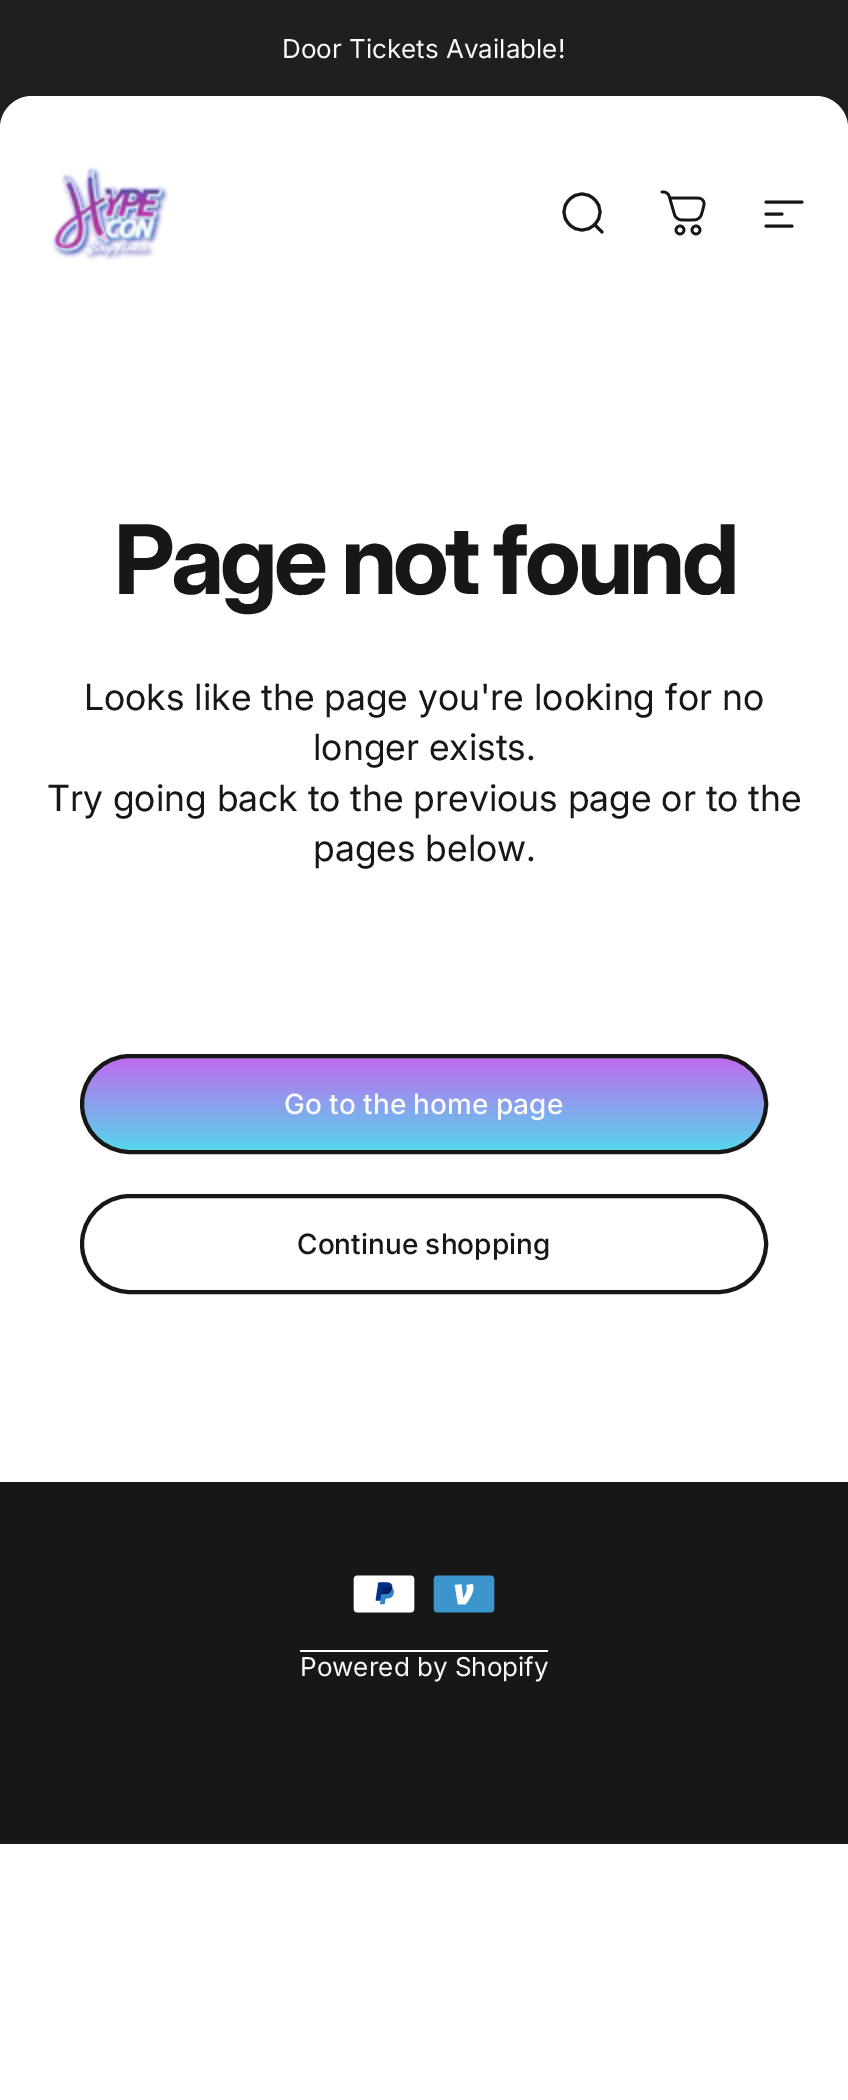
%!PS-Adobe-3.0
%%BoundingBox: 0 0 848 2100
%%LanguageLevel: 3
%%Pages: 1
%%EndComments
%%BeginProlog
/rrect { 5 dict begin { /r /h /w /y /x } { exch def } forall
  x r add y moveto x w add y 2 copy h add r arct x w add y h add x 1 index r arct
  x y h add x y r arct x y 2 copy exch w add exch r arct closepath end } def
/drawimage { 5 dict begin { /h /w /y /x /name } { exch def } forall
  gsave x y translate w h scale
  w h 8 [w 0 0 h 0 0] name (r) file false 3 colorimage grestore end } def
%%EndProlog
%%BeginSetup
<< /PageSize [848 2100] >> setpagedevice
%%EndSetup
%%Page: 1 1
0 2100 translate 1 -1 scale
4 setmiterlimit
1 setgray
0 0 848 2100 rectfill
0.122 setgray
0 0 848 32 rectfill
newpath 32 0 moveto 816 0 lineto 833.5 0 848 14.5 848 32 curveto 848 128 lineto 0 128 lineto 0 32 lineto 0 14.5 14.5 0 32 0 curveto closepath fill
1 setgray
newpath 32 96 moveto 816 96 lineto 833.5 96 848 110.5 848 128 curveto 848 332 lineto 0 332 lineto 0 128 lineto 0 110.5 14.5 96 32 96 curveto closepath fill
(images/1.raw) 51 167 118 94 drawimage
0.09 setgray
3 setlinewidth
1 setlinecap
newpath 602 232 moveto 594.5 224.5 lineto 594.5 224.5 moveto 602 217.5 602 206.5 594.5 199.5 curveto 587.5 192 576.5 192 569.5 199.5 curveto 562 206.5 562 217.5 569.5 224.5 curveto 576.5 232 587.5 232 594.5 224.5 curveto closepath stroke
(images/2.raw) 660 190 46 46 drawimage
newpath 766 202 moveto 802 202 lineto 766 214 moveto 782 214 lineto 766 226 moveto 792 226 lineto stroke
gsave 82 1056 684 96 48 rrect clip newpath
<< /ShadingType 2 /ColorSpace /DeviceRGB /Coords [424 1054 424 1154] /Extend [true true] /Function << /FunctionType 2 /Domain [0 1] /C0 [0.769 0.4 0.933] /C1 [0.322 0.855 0.925] /N 1 >> >> shfill grestore
4 setlinewidth
0 setlinecap
82 1056 684 96 48 rrect stroke
82 1196 684 96 48 rrect stroke
0 1482 848 362 rectfill
(images/3.raw) 353 1575 62 38 drawimage
(images/4.raw) 433 1575 62 38 drawimage
1 setgray
300 1650 248 2 rectfill
/Inter-Regular [26 0 0 -26 0 0] selectfont
0.98 setgray
282 58 moveto (Door Tickets Available!) show
/Inter-Bold [96 0 0 -96 0 0] selectfont
0.09 setgray
114 594 moveto -3.8 0 (Page not found) ashow
/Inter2-Regular [36 0 0 -36 0 0] selectfont
84 710 moveto (Looks like the page you're looking for no) show
313 760 moveto (longer exists.) show
47 811 moveto (Try going back to the previous page or to the) show
313 861 moveto (pages below.) show
/Inter-Medium [28 0 0 -28 0 0] selectfont
0.98 setgray
284 1114 moveto (Go to the home page) show
0.09 setgray
297 1254 moveto (Continue shopping) show
/Inter-Regular [26 0 0 -26 0 0] selectfont
0.98 setgray
300 1676 moveto (Powered by Shopify) show
showpage
%%EOF
